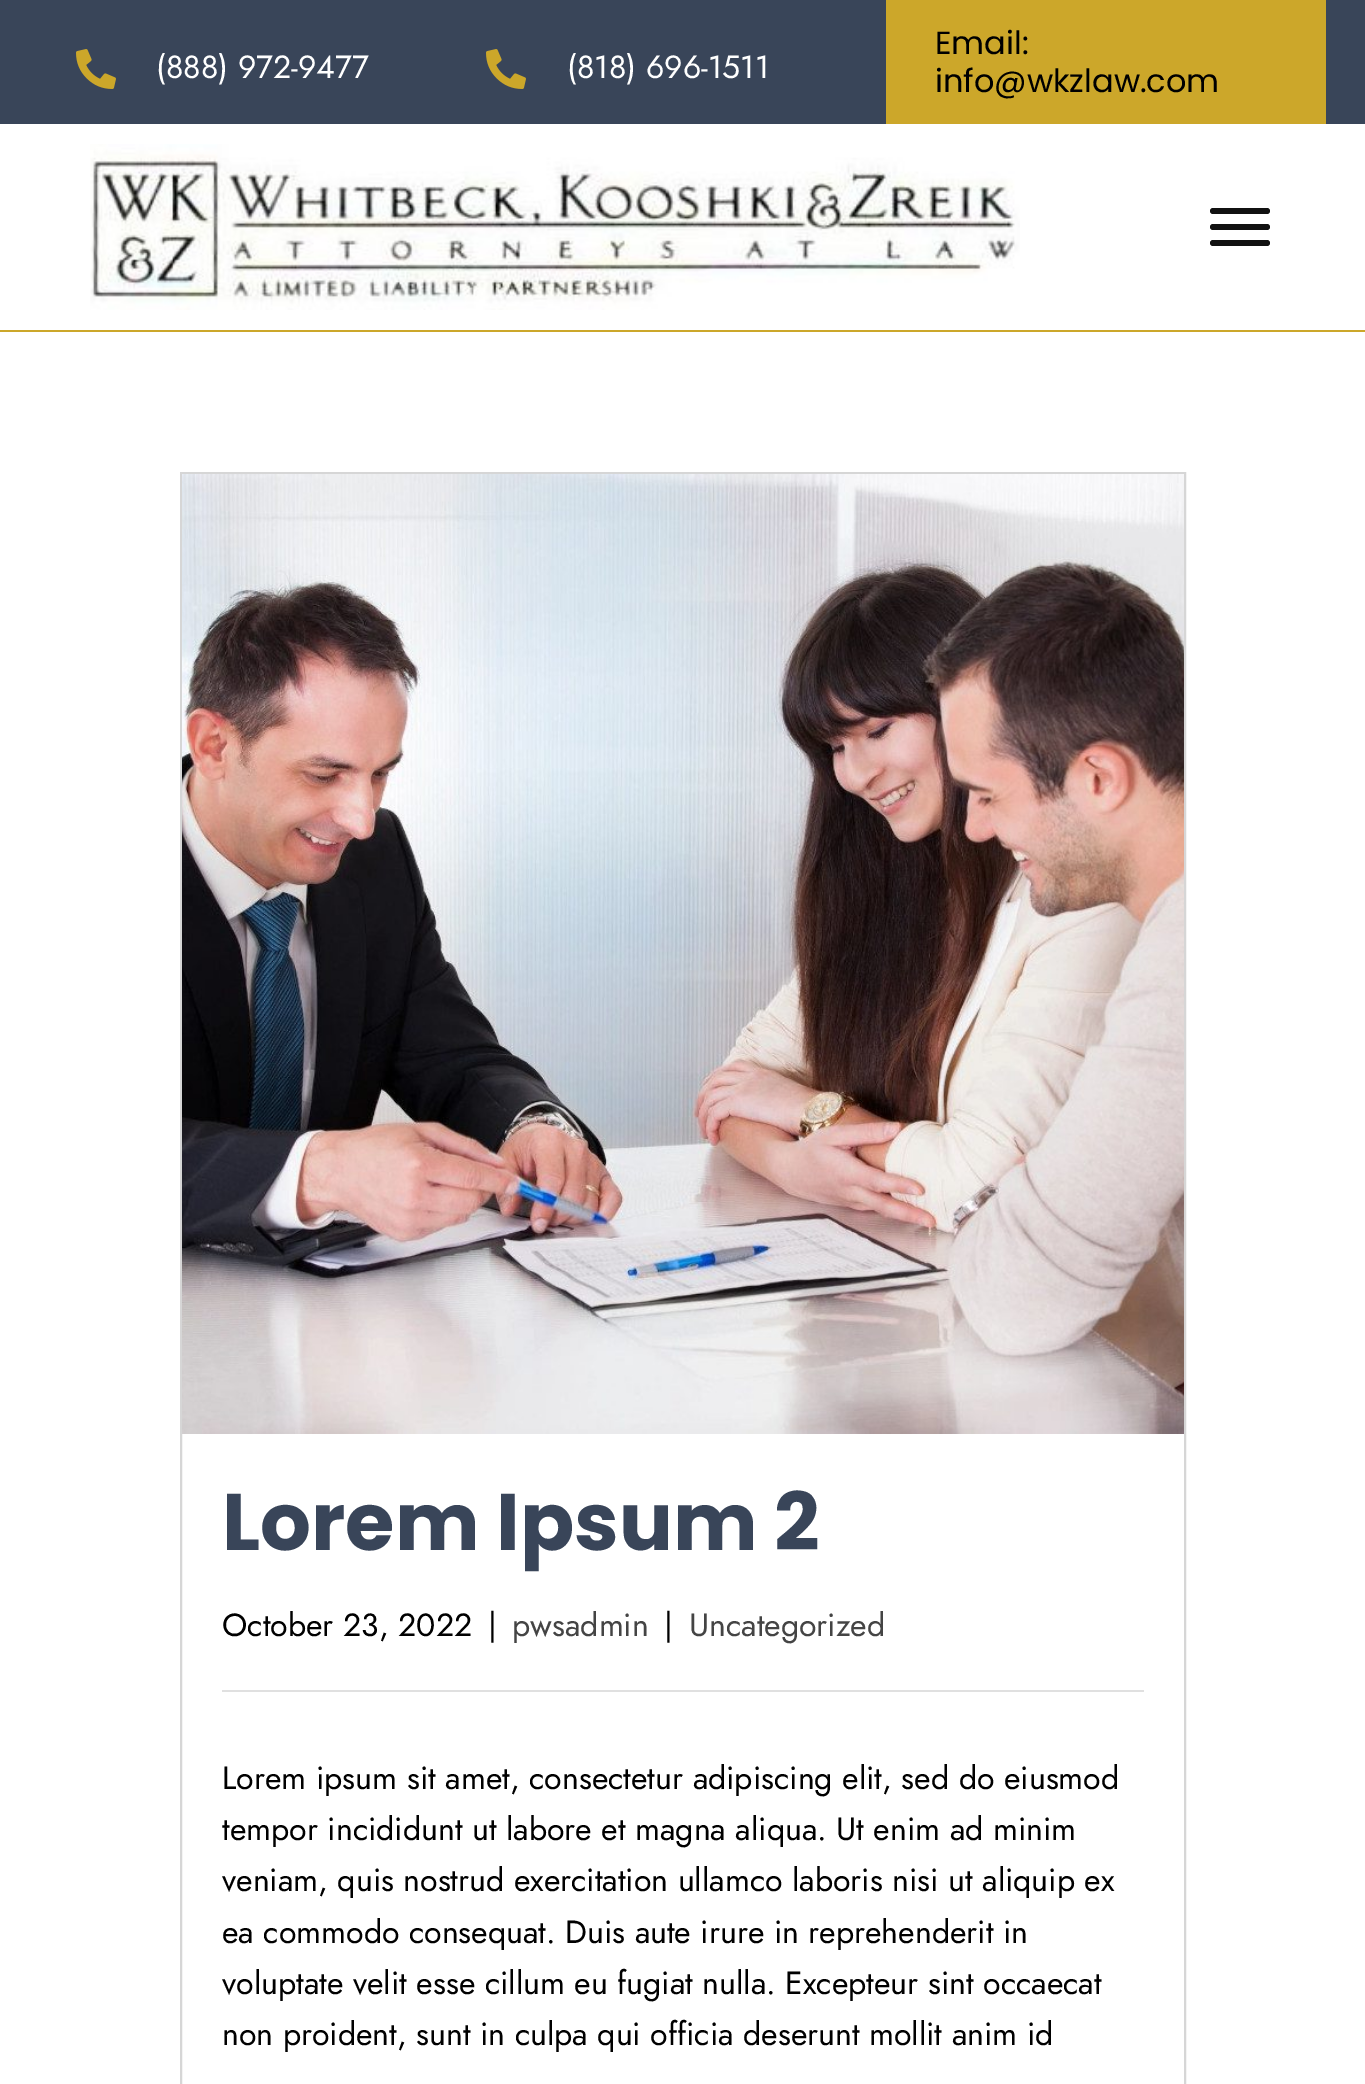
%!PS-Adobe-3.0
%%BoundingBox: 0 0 1365 2084
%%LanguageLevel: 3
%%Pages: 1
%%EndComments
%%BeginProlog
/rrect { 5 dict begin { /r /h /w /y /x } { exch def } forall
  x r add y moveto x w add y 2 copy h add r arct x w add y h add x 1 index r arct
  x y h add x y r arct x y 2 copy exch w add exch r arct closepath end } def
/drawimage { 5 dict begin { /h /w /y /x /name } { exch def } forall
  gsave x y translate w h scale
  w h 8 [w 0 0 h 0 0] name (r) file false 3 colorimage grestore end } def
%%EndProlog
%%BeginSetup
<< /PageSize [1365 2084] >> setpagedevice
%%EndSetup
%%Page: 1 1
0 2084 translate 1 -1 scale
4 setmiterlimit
1 setgray
0 0 1365 2084 rectfill
0.224 0.271 0.349 setrgbcolor
0 0 1365 124 rectfill
(images/1.raw) 76 49 40 40 drawimage
(images/1.raw) 486 49 40 40 drawimage
0.8 0.655 0.165 setrgbcolor
886 0 440 124 rectfill
0 330 1365 2 rectfill
(images/2.raw) 90 144 930 166 drawimage
0.067 setgray
1210 224 60 6 3 rrect fill
1210 208 60 6 3 rrect fill
1210 240 60 6 3 rrect fill
0.839 setgray
2 setlinewidth
181 473 1004 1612 rectstroke
(images/3.raw) 182 474 1002 960 drawimage
0.878 setgray
222 1690 922 2 rectfill
/Jost-Regular [32 0 0 -32 0 0] selectfont
1 setgray
156 78 moveto (\(888\) 972-9477) show
567 78 moveto (\(818\) 696-1511) show
/Poppins-Regular [32 0 0 -32 0 0] selectfont
0 setgray
935 54 moveto (Email:) show
935 92 moveto (info@wkzlaw.com) show
/Poppins-Bold [80 0 0 -80 0 0] selectfont
0.224 0.271 0.349 setrgbcolor
222 1550 moveto (Lorem Ipsum 2) show
/Jost-Regular [32 0 0 -32 0 0] selectfont
0 setgray
222 1636 moveto (October 23, 2022) show
488 1636 moveto (|) show
0.267 setgray
512 1636 moveto (pwsadmin) show
0 setgray
664 1636 moveto (|) show
0.267 setgray
689 1636 moveto (Uncategorized) show
0 setgray
222 1789 moveto (Lorem ipsum sit amet, consectetur adipiscing elit, sed do eiusmod) show
222 1840 moveto (tempor incididunt ut labore et magna aliqua. Ut enim ad minim) show
222 1891 moveto (veniam, quis nostrud exercitation ullamco laboris nisi ut aliquip ex) show
222 1943 moveto (ea commodo consequat. Duis aute irure in reprehenderit in) show
222 1994 moveto (voluptate velit esse cillum eu fugiat nulla. Excepteur sint occaecat) show
222 2045 moveto (non proident, sunt in culpa qui officia deserunt mollit anim id) show
showpage
%%EOF
